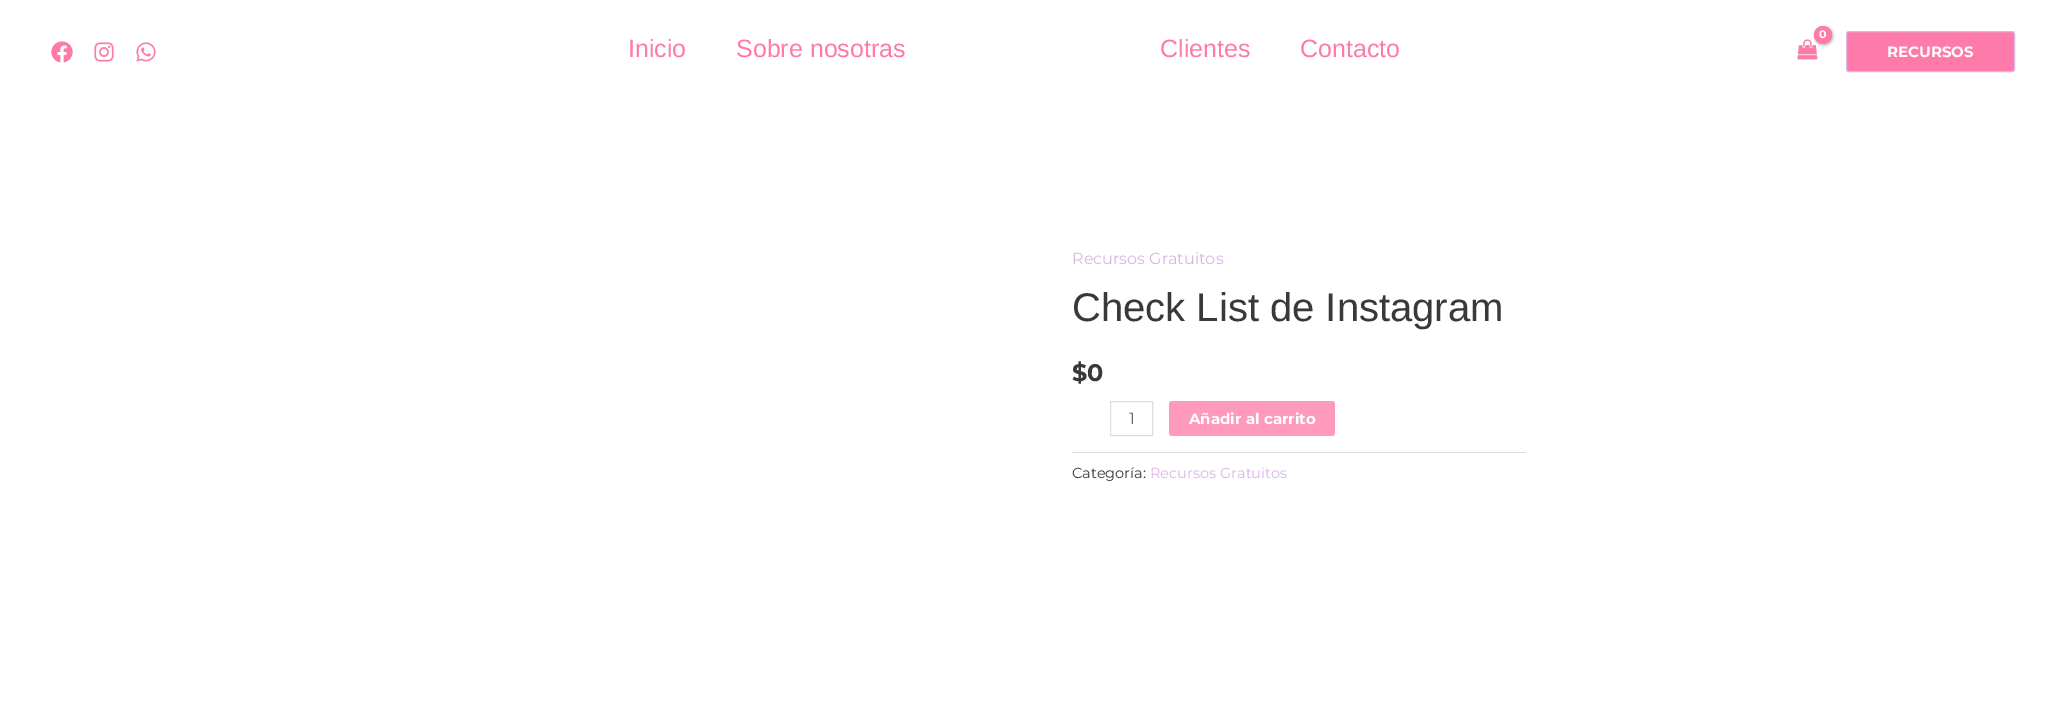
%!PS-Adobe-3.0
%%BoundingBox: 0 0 2066 712
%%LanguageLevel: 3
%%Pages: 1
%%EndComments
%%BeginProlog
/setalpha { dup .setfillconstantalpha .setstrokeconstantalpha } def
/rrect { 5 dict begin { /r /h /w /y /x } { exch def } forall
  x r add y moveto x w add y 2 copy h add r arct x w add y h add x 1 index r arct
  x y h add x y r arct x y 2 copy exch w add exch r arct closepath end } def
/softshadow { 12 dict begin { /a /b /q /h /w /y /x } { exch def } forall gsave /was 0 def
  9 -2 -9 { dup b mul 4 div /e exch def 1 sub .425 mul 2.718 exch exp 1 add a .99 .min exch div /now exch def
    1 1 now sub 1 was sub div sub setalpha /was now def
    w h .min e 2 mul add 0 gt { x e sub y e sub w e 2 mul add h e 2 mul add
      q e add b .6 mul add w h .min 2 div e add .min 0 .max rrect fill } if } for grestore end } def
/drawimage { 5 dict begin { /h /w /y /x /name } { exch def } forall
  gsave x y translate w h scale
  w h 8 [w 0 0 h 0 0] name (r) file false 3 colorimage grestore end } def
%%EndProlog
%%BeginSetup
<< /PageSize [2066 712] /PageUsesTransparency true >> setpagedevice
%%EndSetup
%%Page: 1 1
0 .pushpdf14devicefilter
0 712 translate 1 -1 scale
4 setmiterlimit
1 setgray
0 0 2066 712 rectfill
(images/1.raw) 51 41 22 22 drawimage
(images/2.raw) 94 42 20 20 drawimage
(images/3.raw) 136 42 20 20 drawimage
(images/4.raw) 1797 39 21 21 drawimage
0 setgray
1815 27 18 18 9 1.5 0.3 softshadow
0.992 0.478 0.663 setrgbcolor
newpath 1823 35 9 0 360 arc closepath fill
1846.5 31.5 168 40 2.5 rrect gsave fill grestore
0.855 0.71 0.902 setrgbcolor
stroke
0.867 setgray
1110.5 401.5 42 34 rectstroke
1 0.604 0.733 setrgbcolor
1169 401 166 35 3 rrect fill
0.867 setgray
1072 452 454 1 rectfill
/LiberationSans-Regular [25 0 0 -25 0 0] selectfont
0.992 0.478 0.663 setrgbcolor
628 57 moveto (Inicio) show
736 57 moveto (Sobre nosotras) show
/Montserrat-Bold [11 0 0 -11 0 0] selectfont
0.996 setgray
1819 38 moveto (0) show
/LiberationSans-Regular [25 0 0 -25 0 0] selectfont
0.992 0.478 0.663 setrgbcolor
1160 57 moveto (Clientes) show
1300 57 moveto (Contacto) show
/Montserrat-Bold [15 0 0 -15 0 0] selectfont
0.996 setgray
1887 57 moveto (RECURSOS) show
/Montserrat-Regular [16 0 0 -16 0 0] selectfont
0.855 0.71 0.902 setrgbcolor
1072 264 moveto (Recursos Gratuitos) show
/LiberationSans-Regular [40 0 0 -40 0 0] selectfont
0.224 setgray
1072 321 moveto (Check List de Instagram) show
/Montserrat-Bold [24 0 0 -24 0 0] selectfont
1072 381 moveto ($0) show
/Montserrat-Regular [16 0 0 -16 0 0] selectfont
0.4 setgray
1129 424 moveto (1) show
/Montserrat-Bold [15 0 0 -15 0 0] selectfont
0.996 setgray
1189 424 moveto (Añadir al carrito) show
/Montserrat-Regular [14.5 0 0 -14.5 0 0] selectfont
0.224 setgray
1072 478 moveto (Categoría:) show
0.855 0.71 0.902 setrgbcolor
1150 478 moveto (Recursos Gratuitos) show
.poppdf14devicefilter showpage
%%EOF
